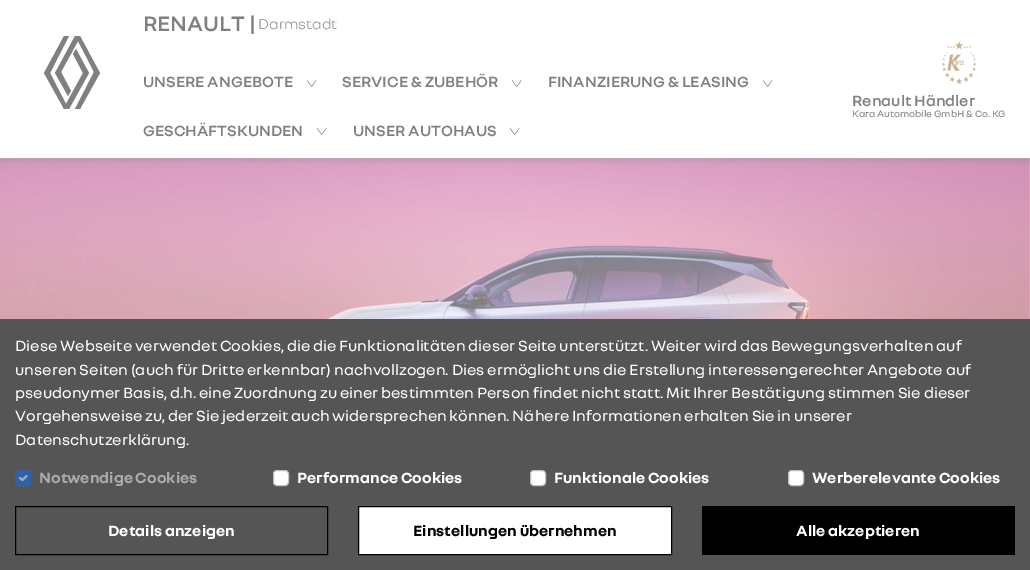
%!PS-Adobe-3.0
%%BoundingBox: 0 0 1030 570
%%LanguageLevel: 3
%%Pages: 1
%%EndComments
%%BeginProlog
/setalpha { dup .setfillconstantalpha .setstrokeconstantalpha } def
/rrect { 5 dict begin { /r /h /w /y /x } { exch def } forall
  x r add y moveto x w add y 2 copy h add r arct x w add y h add x 1 index r arct
  x y h add x y r arct x y 2 copy exch w add exch r arct closepath end } def
/softshadow { 12 dict begin { /a /b /q /h /w /y /x } { exch def } forall gsave /was 0 def
  9 -2 -9 { dup b mul 4 div /e exch def 1 sub .425 mul 2.718 exch exp 1 add a .99 .min exch div /now exch def
    1 1 now sub 1 was sub div sub setalpha /was now def
    w h .min e 2 mul add 0 gt { x e sub y e sub w e 2 mul add h e 2 mul add
      q e add b .6 mul add w h .min 2 div e add .min 0 .max rrect fill } if } for grestore end } def
/drawimage { 5 dict begin { /h /w /y /x /name } { exch def } forall
  gsave x y translate w h scale
  w h 8 [w 0 0 h 0 0] name (r) file false 3 colorimage grestore end } def
%%EndProlog
%%BeginSetup
<< /PageSize [1030 570] /PageUsesTransparency true >> setpagedevice
%%EndSetup
%%Page: 1 1
0 .pushpdf14devicefilter
0 570 translate 1 -1 scale
4 setmiterlimit
1 setgray
0 0 1030 570 rectfill
(images/3.raw) 0 158 1030 161 drawimage
0.502 setgray
0 2 1030 158 0 3.5 0.4 softshadow
1 setgray
0 0 1030 158 rectfill
0.502 setgray
newpath 89 73 moveto 69 109 lineto 64 109 lineto 44 73 lineto 64 36 lineto 69 36 lineto 50 73 lineto 66 104 lineto 83 73 lineto 73 54 lineto 76 49 lineto closepath 80 36 moveto 75 36 lineto 55 73 lineto 68 96 lineto 71 91 lineto 61 72 lineto 78 41 lineto 94 72 lineto 75 109 lineto 80 109 lineto 100 73 lineto closepath fill
(images/1.raw) 306 80 11 7 drawimage
(images/1.raw) 511 80 11 7 drawimage
(images/1.raw) 762 80 11 7 drawimage
(images/1.raw) 316 128 11 7 drawimage
(images/1.raw) 509 128 11 7 drawimage
(images/2.raw) 941 41 36 43 drawimage
0.333 setgray
0 319 1030 251 rectfill
0.192 0.384 0.663 setrgbcolor
15 470 16 16 4 rrect fill
0.667 setgray
2.1 setlinewidth
1 setlinecap
1 setlinejoin
newpath 20 478 moveto 22.5 480 lineto 26.5 476 lineto stroke
0.192 0.384 0.663 setrgbcolor
1 setlinewidth
0 setlinecap
0 setlinejoin
15.5 470.5 15 15 3.5 rrect stroke
1 setgray
273.5 470.5 15 15 3.5 rrect gsave fill grestore
0.753 setgray
stroke
1 setgray
530.5 470.5 15 15 3.5 rrect gsave fill grestore
0.753 setgray
stroke
1 setgray
788.5 470.5 15 15 3.5 rrect gsave fill grestore
0.753 setgray
stroke
0 setgray
15.5 506.5 312 48 rectstroke
1 setgray
newpath 358.5 506.5 moveto 671.5 506.5 lineto 671.5 554.5 lineto 358.5 554.5 lineto closepath gsave fill grestore
0 setgray
stroke
702 506 313 49 rectfill
/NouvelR-SemiBold [22.5 0 0 -22.5 0 0] selectfont
0.502 setgray
143 31 moveto (RENAULT |) show
/NouvelR-Light [15.25 0 0 -15.25 0 0] selectfont
258 29 moveto (Darmstadt) show
/NouvelR-SemiBold [16 0 0 -16 0 0] selectfont
143 87 moveto (UNSERE ANGEBOTE) show
342 87 moveto (SERVICE & ZUBEHÖR) show
548 87 moveto (FINANZIERUNG & LEASING) show
143 136 moveto (GESCHÄFTSKUNDEN) show
353 136 moveto (UNSER AUTOHAUS) show
852 106 moveto (Renault Händler) show
/NouvelR-Regular [10 0 0 -10 0 0] selectfont
852 117 moveto (Kara Automobile GmbH & Co. KG) show
/NouvelR-Regular [16 0 0 -16 0 0] selectfont
1 setgray
15 351 moveto (Diese Webseite verwendet Cookies, die die Funktionalitäten dieser Seite unterstützt. Weiter wird das Bewegungsverhalten auf) show
15 375 moveto (unseren Seiten \(auch für Dritte erkennbar\) nachvollzogen. Dies ermöglicht uns die Erstellung interessengerechter Angebote auf) show
15 398 moveto (pseudonymer Basis, d.h. eine Zuordnung zu einer bestimmten Person findet nicht statt. Mit Ihrer Bestätigung stimmen Sie dieser) show
15 421 moveto (Vorgehensweise zu, der Sie jederzeit auch widersprechen können. Nähere Informationen erhalten Sie in unserer) show
15 445 moveto (Datenschutzerklärung.) show
/NouvelR-Bold [16 0 0 -16 0 0] selectfont
0.667 setgray
39 483 moveto (Notwendige Cookies) show
1 setgray
297 483 moveto (Performance Cookies) show
554 483 moveto (Funktionale Cookies) show
812 483 moveto (Werberelevante Cookies) show
108 536 moveto (Details anzeigen) show
0 setgray
413 536 moveto (Einstellungen übernehmen) show
1 setgray
796 536 moveto (Alle akzeptieren) show
.poppdf14devicefilter showpage
%%EOF
